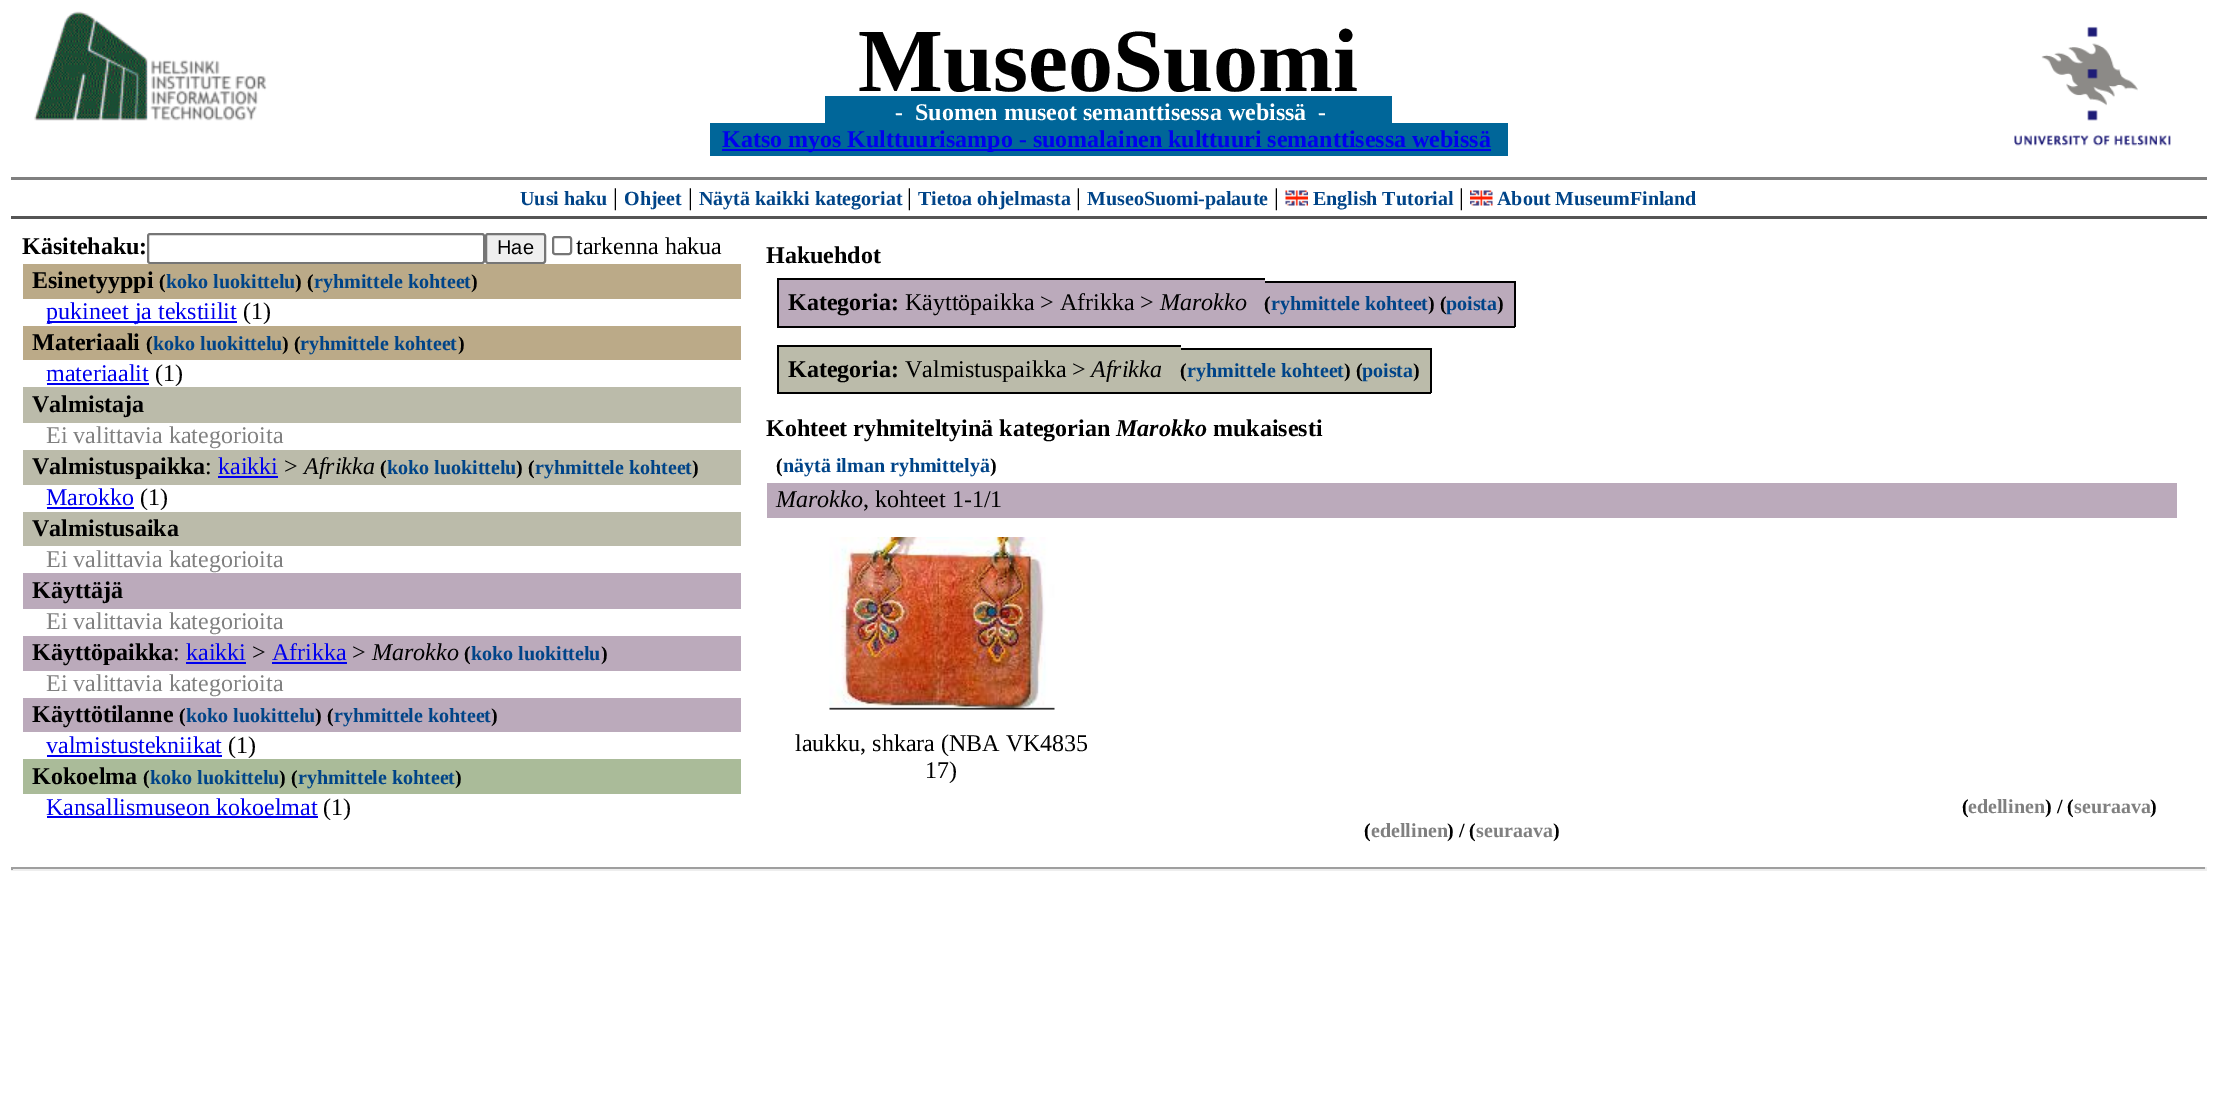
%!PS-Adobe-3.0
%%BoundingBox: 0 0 2217 1101
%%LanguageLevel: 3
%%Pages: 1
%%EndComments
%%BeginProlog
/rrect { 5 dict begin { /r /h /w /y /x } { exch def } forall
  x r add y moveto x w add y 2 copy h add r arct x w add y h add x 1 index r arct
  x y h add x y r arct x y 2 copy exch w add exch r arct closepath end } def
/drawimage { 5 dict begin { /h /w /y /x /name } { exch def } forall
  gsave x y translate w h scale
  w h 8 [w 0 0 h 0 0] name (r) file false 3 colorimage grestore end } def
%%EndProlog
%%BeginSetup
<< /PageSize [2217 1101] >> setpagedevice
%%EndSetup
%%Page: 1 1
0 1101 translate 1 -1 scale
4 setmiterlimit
1 setgray
0 0 2217 1101 rectfill
(images/1.raw) 34 11 233 110 drawimage
(images/2.raw) 2014 26 157 120 drawimage
0 0.4 0.6 setrgbcolor
825 96 567 27 rectfill
710 123 798 33 rectfill
0 0 0.933 setrgbcolor
722 149 769 2 rectfill
0.502 setgray
11 177 2196 3 rectfill
0.333 setgray
11 216 2196 3 rectfill
(images/3.raw) 1285 190 23 16 drawimage
(images/4.raw) 1470 190 23 16 drawimage
0.463 setgray
2 setlinewidth
148 234 336 29 2 rrect stroke
0.937 setgray
486 234 59 29 2 rrect gsave fill grestore
0.463 setgray
stroke
553 237 18 17 2 rrect stroke
0.733 0.667 0.533 setrgbcolor
23 264 718 35 rectfill
0 0 0.933 setrgbcolor
47 321 190 2 rectfill
0.733 0.667 0.533 setrgbcolor
23 326 718 34 rectfill
0 0 0.933 setrgbcolor
47 383 102 2 rectfill
0.733 0.733 0.667 setrgbcolor
23 387 718 36 rectfill
23 450 718 35 rectfill
0 0 0.933 setrgbcolor
218 476 60 2 rectfill
47 507 87 2 rectfill
0.733 0.733 0.667 setrgbcolor
23 512 718 34 rectfill
0.733 0.667 0.733 setrgbcolor
23 573 718 36 rectfill
23 636 718 35 rectfill
0 0 0.933 setrgbcolor
186 662 60 2 rectfill
272 662 75 2 rectfill
0.733 0.667 0.733 setrgbcolor
23 698 718 34 rectfill
0 0 0.933 setrgbcolor
47 755 175 2 rectfill
0.667 0.733 0.6 setrgbcolor
23 759 718 35 rectfill
0 0 0.933 setrgbcolor
47 816 271 2 rectfill
0 setgray
777 278 488 2 rectfill
777 326 488 2 rectfill
777 278 2 49 rectfill
0.733 0.667 0.733 setrgbcolor
779 280 486 46 rectfill
1265 281 6 46 rectfill
0 setgray
1265 281 175 2 rectfill
1265 326 175 2 rectfill
0.733 0.667 0.733 setrgbcolor
1271 283 169 43 rectfill
1440 281 6 46 rectfill
0 setgray
1440 281 75 2 rectfill
1440 326 57 2 rectfill
0.733 0.667 0.733 setrgbcolor
1446 283 68 43 rectfill
0 setgray
1514 281 2 46 rectfill
1497 326 18 2 rectfill
0.733 0.733 0.667 setrgbcolor
779 347 402 45 rectfill
0 setgray
777 345 404 2 rectfill
777 392 404 2 rectfill
777 345 2 48 rectfill
0.733 0.733 0.667 setrgbcolor
1181 348 6 45 rectfill
0 setgray
1181 348 175 2 rectfill
1181 392 175 2 rectfill
0.733 0.733 0.667 setrgbcolor
1187 350 169 42 rectfill
1356 348 6 45 rectfill
0 setgray
1356 348 75 2 rectfill
1356 392 57 2 rectfill
0.733 0.733 0.667 setrgbcolor
1362 350 68 42 rectfill
0 setgray
1430 348 2 45 rectfill
1413 392 18 2 rectfill
0.733 0.667 0.733 setrgbcolor
767 483 1410 35 rectfill
(images/5.raw) 829 537 226 173 drawimage
0.624 setgray
11 867 2196 2 rectfill
0.933 setgray
2205 867 2 3 rectfill
11 869 2196 2 rectfill
0.624 setgray
11 867 2 3 rectfill
/LiberationSerif-Bold [90 0 0 -90 0 0] selectfont
0 setgray
858 91 moveto (MuseoSuomi) show
/LiberationSerif-Bold [24 0 0 -24 0 0] selectfont
1 setgray
895 120 moveto (-) show
915 120 moveto (Suomen museot semanttisessa webissä) show
1318 120 moveto (-) show
0 0 0.933 setrgbcolor
722 147 moveto (Katso myos Kulttuurisampo - suomalainen kulttuuri semanttisessa webissä) show
/LiberationSerif-Bold [20 0 0 -20 0 0] selectfont
0 0.267 0.533 setrgbcolor
520 205 moveto (Uusi haku) show
/LiberationSerif-Regular [24 0 0 -24 0 0] selectfont
0 setgray
613 205 moveto (|) show
/LiberationSerif-Bold [20 0 0 -20 0 0] selectfont
0 0.267 0.533 setrgbcolor
624 205 moveto (Ohjeet) show
/LiberationSerif-Regular [24 0 0 -24 0 0] selectfont
0 setgray
688 205 moveto (|) show
/LiberationSerif-Bold [20 0 0 -20 0 0] selectfont
0 0.267 0.533 setrgbcolor
699 205 moveto (Näytä kaikki kategoriat) show
/LiberationSerif-Regular [24 0 0 -24 0 0] selectfont
0 setgray
907 205 moveto (|) show
/LiberationSerif-Bold [20 0 0 -20 0 0] selectfont
0 0.267 0.533 setrgbcolor
918 205 moveto (Tietoa ohjelmasta) show
/LiberationSerif-Regular [24 0 0 -24 0 0] selectfont
0 setgray
1076 205 moveto (|) show
/LiberationSerif-Bold [20 0 0 -20 0 0] selectfont
0 0.267 0.533 setrgbcolor
1087 205 moveto (MuseoSuomi-palaute) show
/LiberationSerif-Regular [24 0 0 -24 0 0] selectfont
0 setgray
1274 205 moveto (|) show
/LiberationSerif-Bold [20 0 0 -20 0 0] selectfont
0 0.267 0.533 setrgbcolor
1313 205 moveto (English Tutorial) show
/LiberationSerif-Regular [24 0 0 -24 0 0] selectfont
0 setgray
1459 205 moveto (|) show
/LiberationSerif-Bold [20 0 0 -20 0 0] selectfont
0 0.267 0.533 setrgbcolor
1497 205 moveto (About MuseumFinland) show
/LiberationSerif-Bold [24 0 0 -24 0 0] selectfont
0 setgray
22 254 moveto (Käsitehaku:) show
/LiberationSans-Regular [20 0 0 -20 0 0] selectfont
497 254 moveto (Hae) show
/LiberationSerif-Regular [24 0 0 -24 0 0] selectfont
576 254 moveto (tarkenna hakua) show
/LiberationSerif-Bold [24 0 0 -24 0 0] selectfont
32 288 moveto (Esinetyyppi) show
/LiberationSerif-Bold [20 0 0 -20 0 0] selectfont
159 288 moveto (\() show
0 0.267 0.533 setrgbcolor
166 288 moveto (koko luokittelu) show
0 setgray
295 288 moveto (\) \() show
0 0.267 0.533 setrgbcolor
314 288 moveto (ryhmittele kohteet) show
0 setgray
471 288 moveto (\)) show
/LiberationSerif-Regular [24 0 0 -24 0 0] selectfont
0 0 0.933 setrgbcolor
46 319 moveto (pukineet ja tekstiilit) show
0 setgray
243 319 moveto (\(1\)) show
/LiberationSerif-Bold [24 0 0 -24 0 0] selectfont
32 350 moveto (Materiaali) show
/LiberationSerif-Bold [20 0 0 -20 0 0] selectfont
146 350 moveto (\() show
0 0.267 0.533 setrgbcolor
153 350 moveto (koko luokittelu) show
0 setgray
282 350 moveto (\) \() show
0 0.267 0.533 setrgbcolor
300 350 moveto (ryhmittele kohteet) show
0 setgray
458 350 moveto (\)) show
/LiberationSerif-Regular [24 0 0 -24 0 0] selectfont
0 0 0.933 setrgbcolor
46 381 moveto (materiaalit) show
0 setgray
155 381 moveto (\(1\)) show
/LiberationSerif-Bold [24 0 0 -24 0 0] selectfont
32 412 moveto (Valmistaja) show
/LiberationSerif-Regular [24 0 0 -24 0 0] selectfont
0.502 setgray
46 443 moveto (Ei valittavia kategorioita) show
/LiberationSerif-Bold [24 0 0 -24 0 0] selectfont
0 setgray
32 474 moveto (Valmistuspaikka) show
/LiberationSerif-Regular [24 0 0 -24 0 0] selectfont
205 474 moveto (:) show
0 0 0.933 setrgbcolor
218 474 moveto (kaikki) show
0 setgray
284 474 moveto (>) show
/LiberationSerif-Italic [24 0 0 -24 0 0] selectfont
304 474 moveto (Afrikka) show
/LiberationSerif-Bold [20 0 0 -20 0 0] selectfont
380 474 moveto (\() show
0 0.267 0.533 setrgbcolor
387 474 moveto (koko luokittelu) show
0 setgray
516 474 moveto (\) \() show
0 0.267 0.533 setrgbcolor
535 474 moveto (ryhmittele kohteet) show
0 setgray
692 474 moveto (\)) show
/LiberationSerif-Regular [24 0 0 -24 0 0] selectfont
0 0 0.933 setrgbcolor
46 505 moveto (Marokko) show
0 setgray
140 505 moveto (\(1\)) show
/LiberationSerif-Bold [24 0 0 -24 0 0] selectfont
32 536 moveto (Valmistusaika) show
/LiberationSerif-Regular [24 0 0 -24 0 0] selectfont
0.502 setgray
46 567 moveto (Ei valittavia kategorioita) show
/LiberationSerif-Bold [24 0 0 -24 0 0] selectfont
0 setgray
32 598 moveto (Käyttäjä) show
/LiberationSerif-Regular [24 0 0 -24 0 0] selectfont
0.502 setgray
46 629 moveto (Ei valittavia kategorioita) show
/LiberationSerif-Bold [24 0 0 -24 0 0] selectfont
0 setgray
32 660 moveto (Käyttöpaikka) show
/LiberationSerif-Regular [24 0 0 -24 0 0] selectfont
173 660 moveto (:) show
0 0 0.933 setrgbcolor
186 660 moveto (kaikki) show
0 setgray
252 660 moveto (>) show
0 0 0.933 setrgbcolor
272 660 moveto (Afrikka) show
0 setgray
352 660 moveto (>) show
/LiberationSerif-Italic [24 0 0 -24 0 0] selectfont
372 660 moveto (Marokko) show
/LiberationSerif-Bold [20 0 0 -20 0 0] selectfont
464 660 moveto (\() show
0 0.267 0.533 setrgbcolor
471 660 moveto (koko luokittelu) show
0 setgray
601 660 moveto (\)) show
/LiberationSerif-Regular [24 0 0 -24 0 0] selectfont
0.502 setgray
46 691 moveto (Ei valittavia kategorioita) show
/LiberationSerif-Bold [24 0 0 -24 0 0] selectfont
0 setgray
32 722 moveto (Käyttötilanne) show
/LiberationSerif-Bold [20 0 0 -20 0 0] selectfont
179 722 moveto (\() show
0 0.267 0.533 setrgbcolor
186 722 moveto (koko luokittelu) show
0 setgray
315 722 moveto (\) \() show
0 0.267 0.533 setrgbcolor
334 722 moveto (ryhmittele kohteet) show
0 setgray
491 722 moveto (\)) show
/LiberationSerif-Regular [24 0 0 -24 0 0] selectfont
0 0 0.933 setrgbcolor
46 753 moveto (valmistustekniikat) show
0 setgray
228 753 moveto (\(1\)) show
/LiberationSerif-Bold [24 0 0 -24 0 0] selectfont
32 784 moveto (Kokoelma) show
/LiberationSerif-Bold [20 0 0 -20 0 0] selectfont
143 784 moveto (\() show
0 0.267 0.533 setrgbcolor
150 784 moveto (koko luokittelu) show
0 setgray
279 784 moveto (\) \() show
0 0.267 0.533 setrgbcolor
298 784 moveto (ryhmittele kohteet) show
0 setgray
455 784 moveto (\)) show
/LiberationSerif-Regular [24 0 0 -24 0 0] selectfont
0 0 0.933 setrgbcolor
46 815 moveto (Kansallismuseon kokoelmat) show
0 setgray
323 815 moveto (\(1\)) show
/LiberationSerif-Bold [24 0 0 -24 0 0] selectfont
766 263 moveto (Hakuehdot) show
788 310 moveto (Kategoria:) show
/LiberationSerif-Regular [24 0 0 -24 0 0] selectfont
905 310 moveto (Käyttöpaikka > Afrikka >) show
/LiberationSerif-Italic [24 0 0 -24 0 0] selectfont
1160 310 moveto (Marokko) show
/LiberationSerif-Bold [20 0 0 -20 0 0] selectfont
1264 310 moveto (\() show
0 0.267 0.533 setrgbcolor
1271 310 moveto (ryhmittele kohteet) show
0 setgray
1428 310 moveto (\) \() show
0 0.267 0.533 setrgbcolor
1446 310 moveto (poista) show
0 setgray
1497 310 moveto (\)) show
/LiberationSerif-Bold [24 0 0 -24 0 0] selectfont
788 377 moveto (Kategoria:) show
/LiberationSerif-Regular [24 0 0 -24 0 0] selectfont
905 377 moveto (Valmistuspaikka >) show
/LiberationSerif-Italic [24 0 0 -24 0 0] selectfont
1091 377 moveto (Afrikka) show
/LiberationSerif-Bold [20 0 0 -20 0 0] selectfont
1180 377 moveto (\() show
0 0.267 0.533 setrgbcolor
1187 377 moveto (ryhmittele kohteet) show
0 setgray
1344 377 moveto (\) \() show
0 0.267 0.533 setrgbcolor
1362 377 moveto (poista) show
0 setgray
1413 377 moveto (\)) show
/LiberationSerif-Bold [24 0 0 -24 0 0] selectfont
766 436 moveto (Kohteet ryhmiteltyinä kategorian) show
/LiberationSerif-BoldItalic [24 0 0 -24 0 0] selectfont
1116 436 moveto (Marokko) show
/LiberationSerif-Bold [24 0 0 -24 0 0] selectfont
1213 436 moveto (mukaisesti) show
/LiberationSerif-Bold [20 0 0 -20 0 0] selectfont
776 472 moveto (\() show
0 0.267 0.533 setrgbcolor
783 472 moveto (näytä ilman ryhmittelyä) show
0 setgray
990 472 moveto (\)) show
/LiberationSerif-Italic [24 0 0 -24 0 0] selectfont
776 507 moveto (Marokko) show
/LiberationSerif-Regular [24 0 0 -24 0 0] selectfont
863 507 moveto (, kohteet 1-1/1) show
795 751 moveto (laukku, shkara \(NBA VK4835) show
925 778 moveto (17\)) show
/LiberationSerif-Bold [20 0 0 -20 0 0] selectfont
1962 813 moveto (\() show
0.502 setgray
1968 813 moveto (edellinen) show
0 setgray
2045 813 moveto (\) / \() show
0.502 setgray
2074 813 moveto (seuraava) show
0 setgray
2150 813 moveto (\)) show
1364 837 moveto (\() show
0.502 setgray
1371 837 moveto (edellinen) show
0 setgray
1447 837 moveto (\) / \() show
0.502 setgray
1476 837 moveto (seuraava) show
0 setgray
1553 837 moveto (\)) show
showpage
%%EOF
